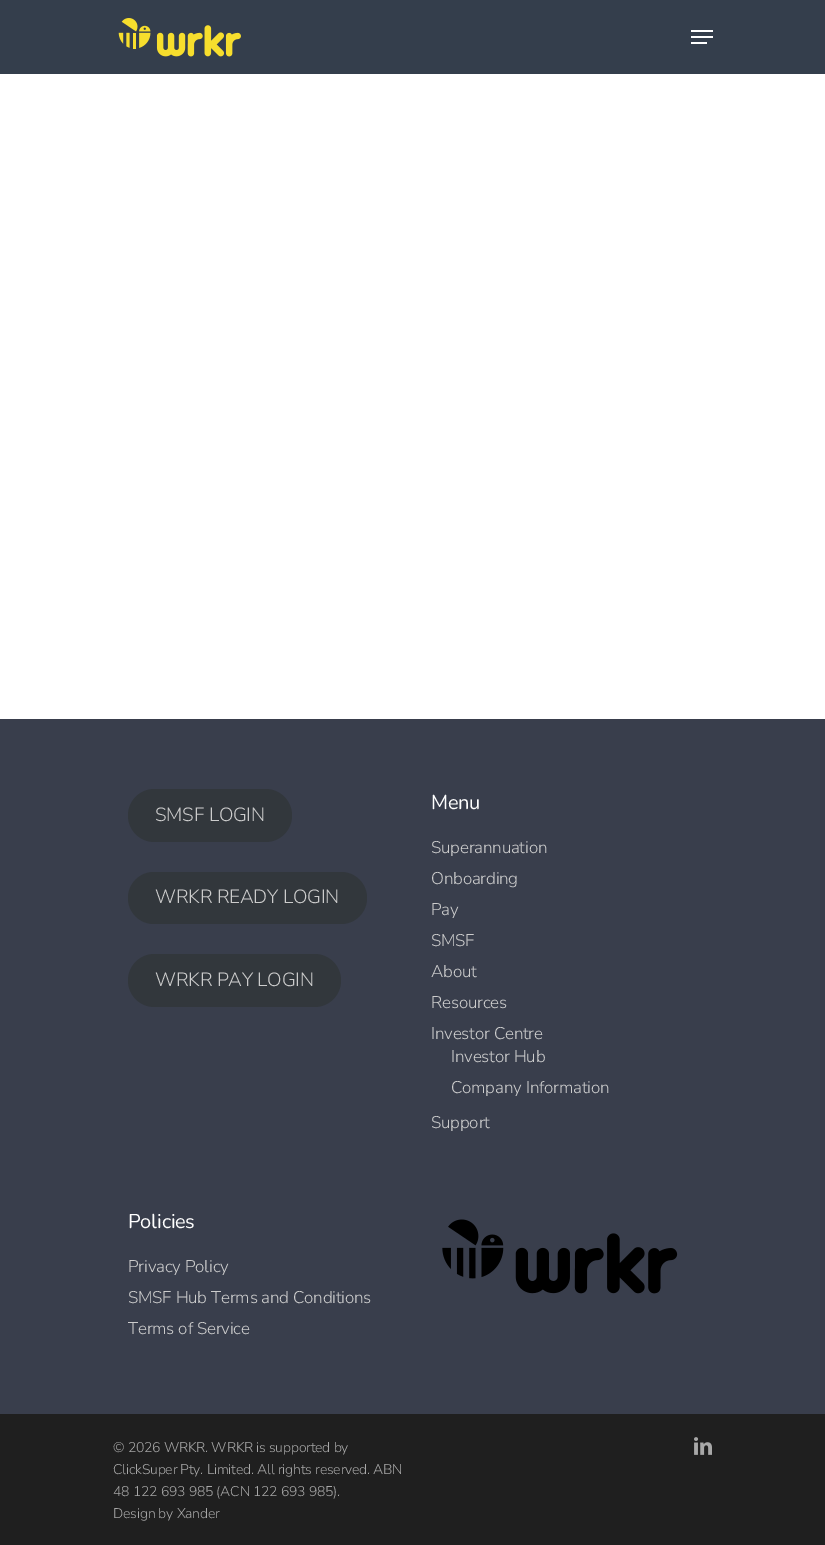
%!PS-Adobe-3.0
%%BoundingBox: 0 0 825 1545
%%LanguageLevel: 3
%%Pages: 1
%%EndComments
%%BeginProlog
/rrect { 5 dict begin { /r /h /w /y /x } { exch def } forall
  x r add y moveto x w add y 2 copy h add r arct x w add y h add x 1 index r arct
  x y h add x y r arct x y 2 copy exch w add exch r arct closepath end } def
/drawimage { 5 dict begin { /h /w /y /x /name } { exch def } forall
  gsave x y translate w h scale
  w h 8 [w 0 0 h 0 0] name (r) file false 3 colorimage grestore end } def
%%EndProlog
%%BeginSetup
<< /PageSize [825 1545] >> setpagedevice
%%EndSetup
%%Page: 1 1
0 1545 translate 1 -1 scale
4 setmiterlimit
1 setgray
0 0 825 1545 rectfill
0.204 0.243 0.298 setrgbcolor
0 0 825 74 rectfill
(images/1.raw) 118 18 123 39 drawimage
1 setgray
691 30 22 2 rectfill
691 42 16 2 rectfill
691 36 22 2 rectfill
0.224 0.243 0.298 setrgbcolor
0 719 825 695 rectfill
0.196 0.216 0.235 setrgbcolor
128 789 164 53 26.5 rrect fill
128 872 239 52 26 rrect fill
128 954 213 53 26.5 rrect fill
(images/2.raw) 442 1219 236 75 drawimage
0.122 setgray
0 1414 825 131 rectfill
(images/3.raw) 694 1437 18 18 drawimage
/NunitoSans-ExtraLight [19.1 0 0 -19.1 0 0] selectfont
0.8 setgray
155 821 moveto -0.2 0 (SMSF LOGIN) ashow
155 903 moveto -0.2 0 (WRKR READY LOGIN) ashow
155 986 moveto -0.2 0 (WRKR PAY LOGIN) ashow
/Nunito-Regular [20 0 0 -20 0 0] selectfont
1 setgray
431 809 moveto -0.2 0 (Menu) ashow
/NunitoSans-ExtraLight [17 0 0 -17 0 0] selectfont
0.8 setgray
431 853 moveto -0.2 0 (Superannuation) ashow
431 884 moveto -0.2 0 (Onboarding) ashow
431 915 moveto -0.2 0 (Pay) ashow
431 946 moveto -0.2 0 (SMSF) ashow
431 977 moveto -0.2 0 (About) ashow
431 1008 moveto -0.2 0 (Resources) ashow
431 1039 moveto -0.2 0 (Investor Centre) ashow
451 1062 moveto -0.2 0 (Investor Hub) ashow
451 1093 moveto -0.2 0 (Company Information) ashow
431 1128 moveto -0.2 0 (Support) ashow
/Nunito-Regular [20 0 0 -20 0 0] selectfont
1 setgray
128 1228 moveto -0.2 0 (Policies) ashow
/NunitoSans-ExtraLight [17 0 0 -17 0 0] selectfont
0.8 setgray
128 1272 moveto -0.2 0 (Privacy Policy) ashow
128 1303 moveto -0.2 0 (SMSF Hub Terms and Conditions) ashow
128 1334 moveto -0.2 0 (Terms of Service) ashow
/NunitoSans-ExtraLight [14 0 0 -14 0 0] selectfont
0.659 setgray
113 1452 moveto -0.2 0 (© 2026 WRKR. WRKR is supported by) ashow
113 1474 moveto -0.2 0 (ClickSuper Pty. Limited. All rights reserved. ABN) ashow
113 1496 moveto -0.2 0 (48 122 693 985 \(ACN 122 693 985\).) ashow
113 1518 moveto -0.2 0 (Design by Xander) ashow
showpage
%%EOF
